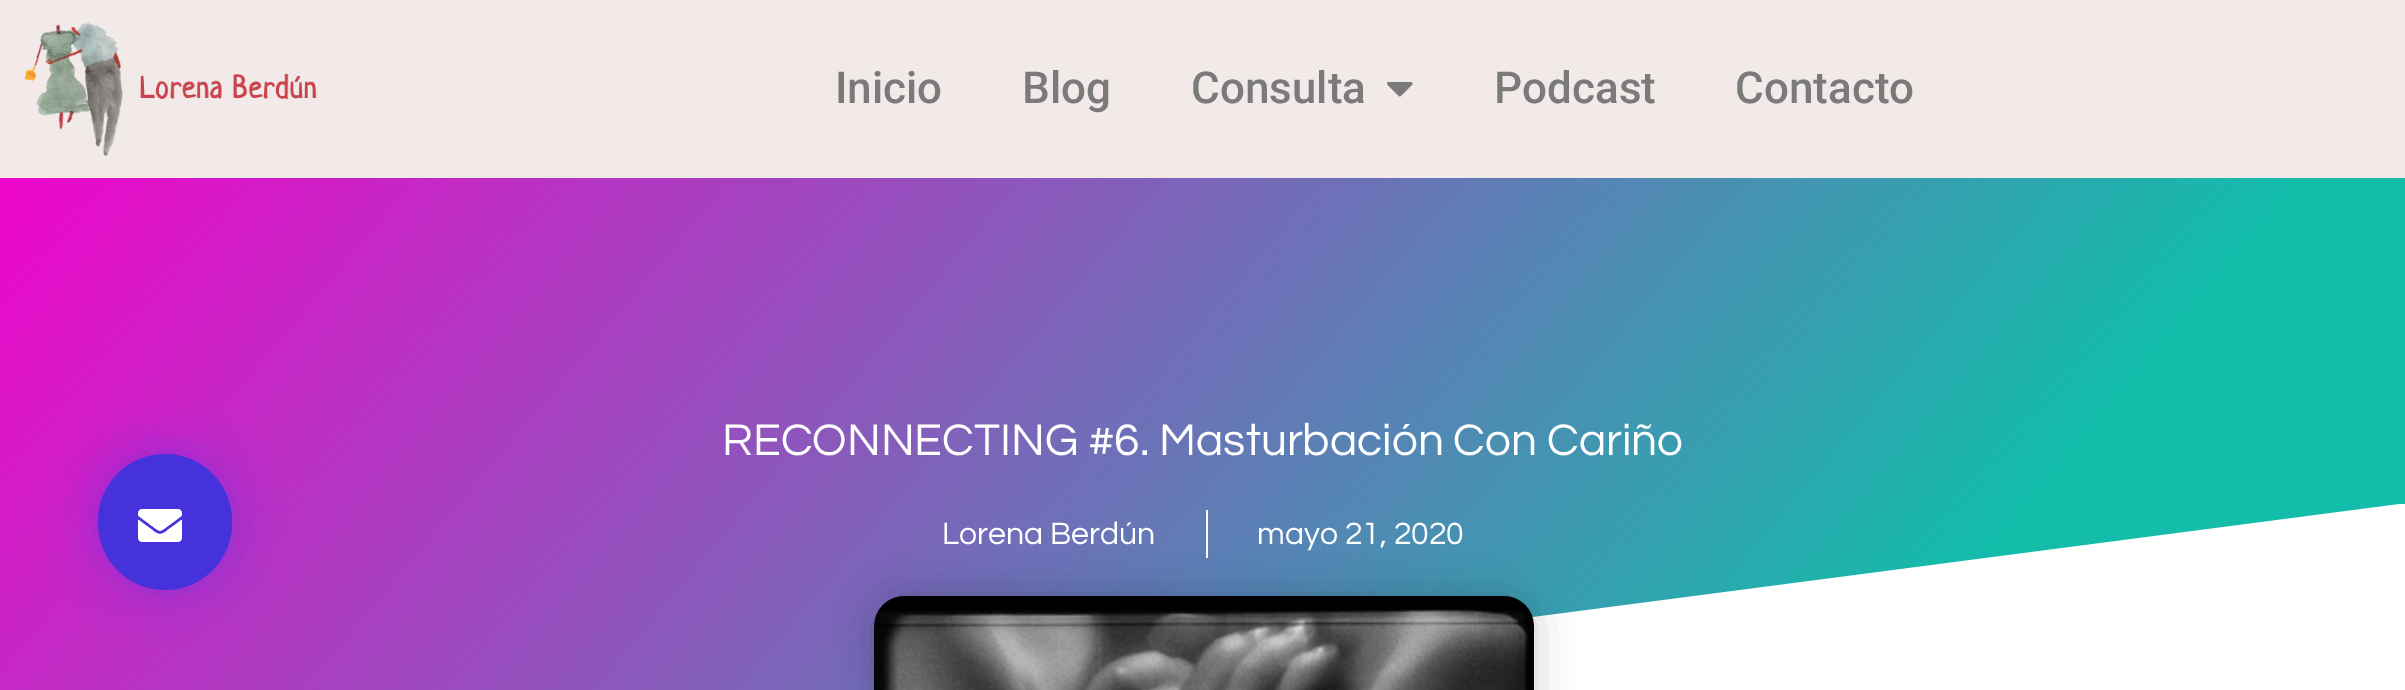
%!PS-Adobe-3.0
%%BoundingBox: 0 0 2405 690
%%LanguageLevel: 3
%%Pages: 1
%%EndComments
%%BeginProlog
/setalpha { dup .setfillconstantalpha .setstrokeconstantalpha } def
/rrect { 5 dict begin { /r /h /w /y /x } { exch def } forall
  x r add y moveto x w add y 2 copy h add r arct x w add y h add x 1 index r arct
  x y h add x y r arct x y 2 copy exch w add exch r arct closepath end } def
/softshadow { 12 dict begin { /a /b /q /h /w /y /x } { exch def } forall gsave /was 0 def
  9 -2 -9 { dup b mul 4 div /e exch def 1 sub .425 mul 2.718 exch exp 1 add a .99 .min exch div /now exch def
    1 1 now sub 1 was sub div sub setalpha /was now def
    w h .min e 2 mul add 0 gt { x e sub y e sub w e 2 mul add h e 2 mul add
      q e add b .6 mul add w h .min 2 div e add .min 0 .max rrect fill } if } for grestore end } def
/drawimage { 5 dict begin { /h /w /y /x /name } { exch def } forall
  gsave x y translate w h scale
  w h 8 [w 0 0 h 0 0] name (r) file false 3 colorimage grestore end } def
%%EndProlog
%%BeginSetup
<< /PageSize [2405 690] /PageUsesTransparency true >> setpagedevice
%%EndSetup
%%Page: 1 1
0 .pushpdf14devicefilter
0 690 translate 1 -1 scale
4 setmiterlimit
0.949 0.914 0.914 setrgbcolor
0 0 2405 690 rectfill
(images/1.raw) 24 21 293 137 drawimage
(images/2.raw) 1387 82 26 15 drawimage
gsave newpath 0 178 moveto 2405 178 lineto 2405 690 lineto 0 690 lineto closepath clip newpath
<< /ShadingType 2 /ColorSpace /DeviceRGB /Coords [335 -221 2071 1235] /Extend [true true] /Function << /FunctionType 3 /Domain [0 1] /Functions [<< /FunctionType 2 /Domain [0 1] /C0 [0.937 0.024 0.796] /C1 [0.075 0.741 0.667] /N 1 >> << /FunctionType 2 /Domain [0 1] /C0 [0.075 0.741 0.667] /C1 [0.075 0.741 0.667] /N 1 >>] /Bounds [0.78] /Encode [0 1 0 1] >> >> shfill grestore
0.208 0.22 0.941 setrgbcolor
98 454 134 136 67 25 0.35 softshadow
0.275 0.196 0.855 setrgbcolor
98 454 134 136 67 rrect fill
(images/3.raw) 138 509 44 33 drawimage
gsave
0 504 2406 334 rectclip
1 setgray
newpath 0 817 moveto 0 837 lineto 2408 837 lineto 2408 503 lineto closepath fill
grestore
1 setgray
1206 510 2 48 rectfill
0 setgray
874 596 660 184 30 20 0.2 softshadow
(images/4.raw) 874 596 660 94 drawimage
/Roboto-Medium [44 0 0 -44 0 0] selectfont
0.478 setgray
835 103 moveto (Inicio) show
1022 103 moveto (Blog) show
1191 103 moveto (Consulta) show
1494 103 moveto (Podcast) show
1735 103 moveto (Contacto) show
/Questrial-Regular [46 0 0 -46 0 0] selectfont
1 setgray
722 455 moveto (RECONNECTING #6. Masturbación Con Cariño) show
/Questrial-Regular [32 0 0 -32 0 0] selectfont
942 544 moveto (Lorena Berdún) show
1257 544 moveto (mayo 21, 2020) show
.poppdf14devicefilter showpage
%%EOF
